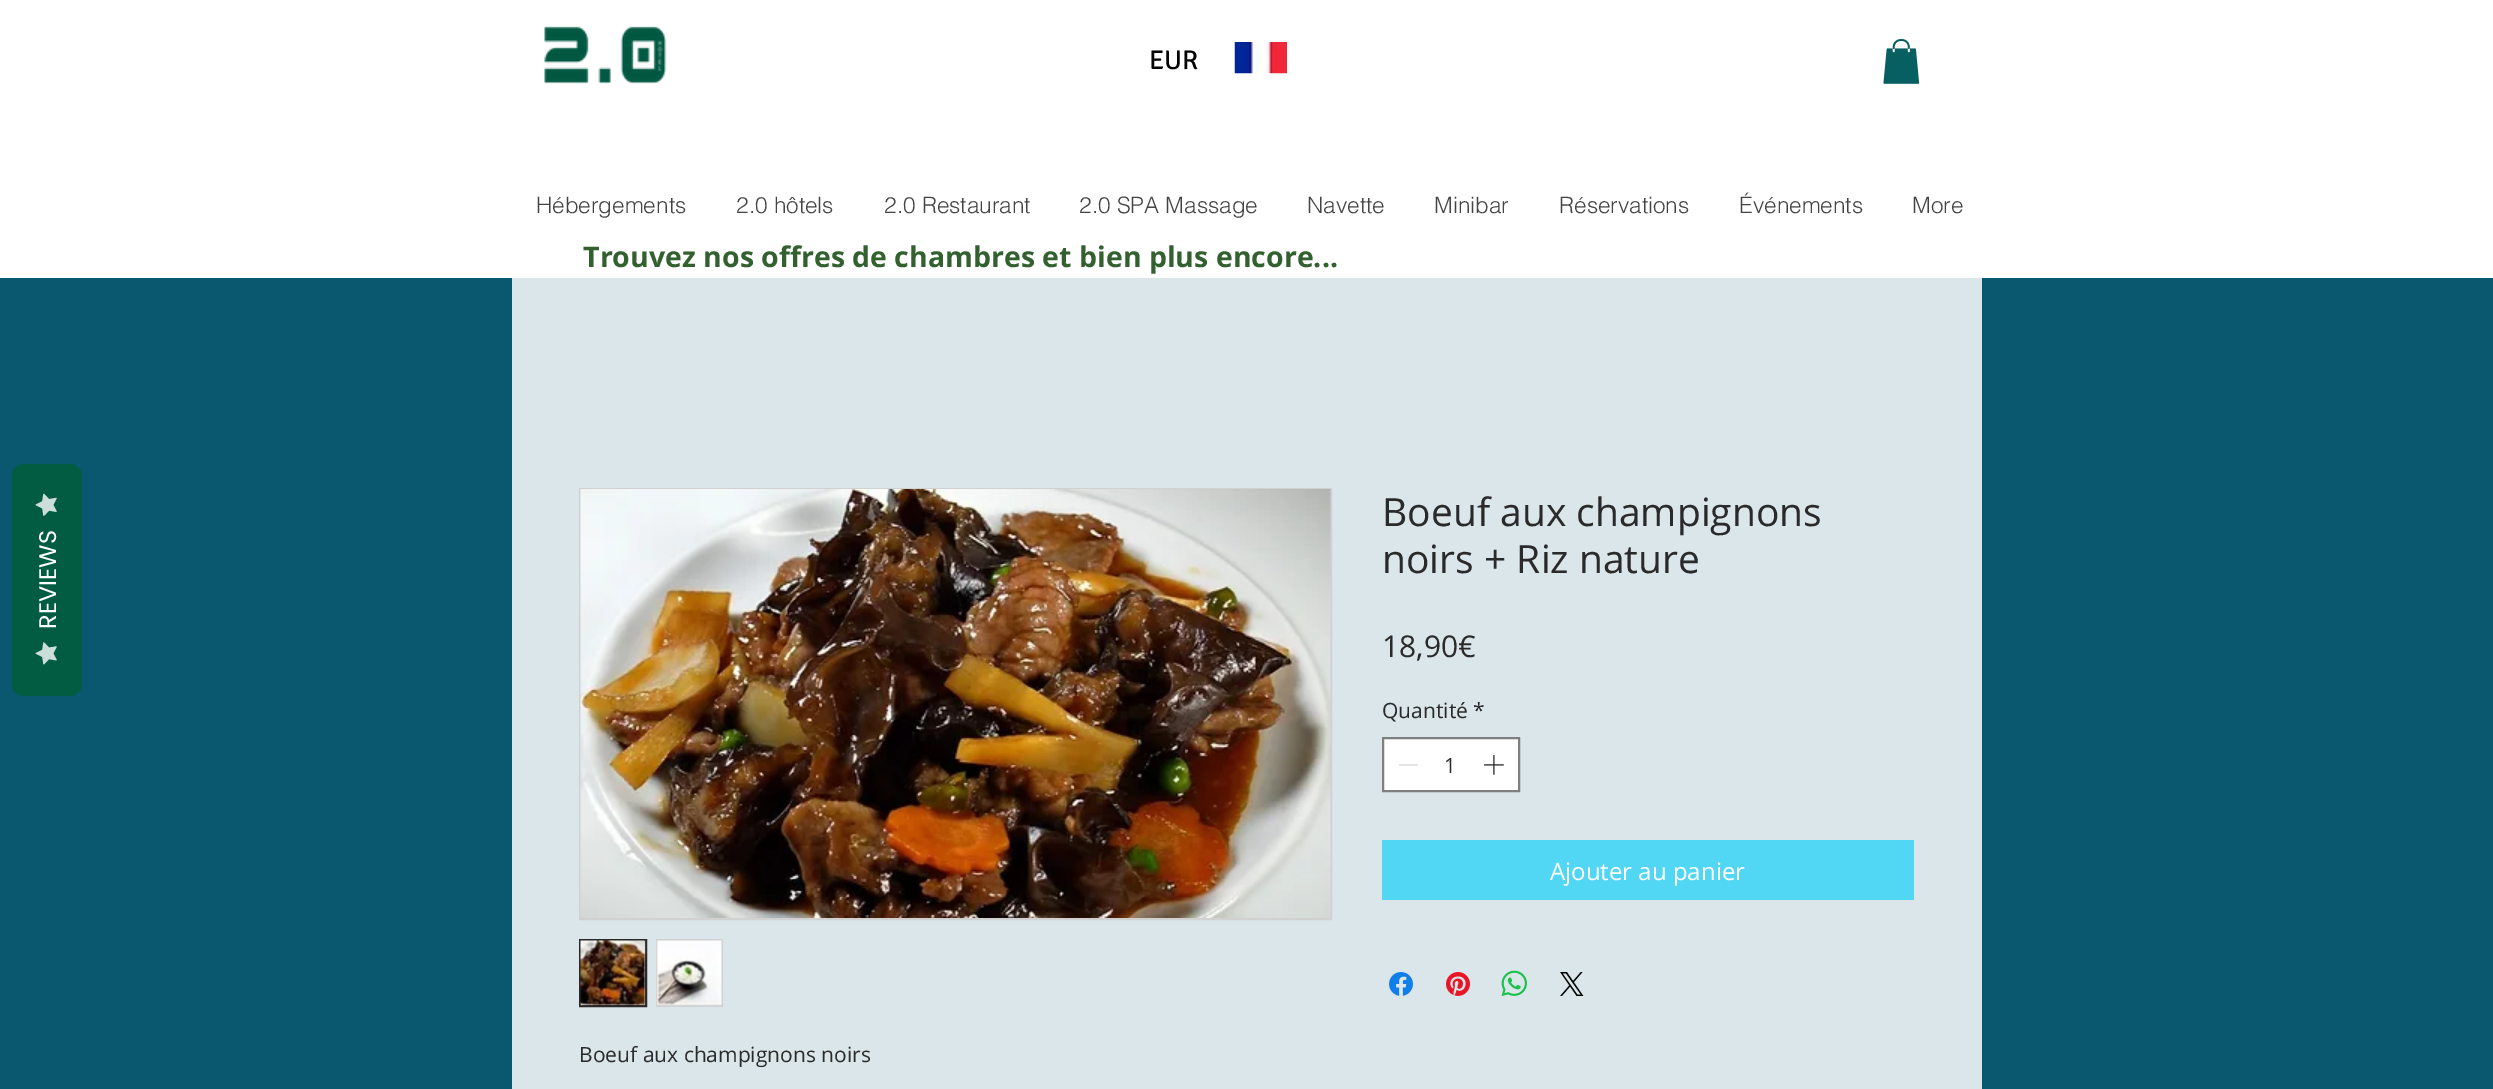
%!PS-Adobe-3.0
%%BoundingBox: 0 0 2493 1089
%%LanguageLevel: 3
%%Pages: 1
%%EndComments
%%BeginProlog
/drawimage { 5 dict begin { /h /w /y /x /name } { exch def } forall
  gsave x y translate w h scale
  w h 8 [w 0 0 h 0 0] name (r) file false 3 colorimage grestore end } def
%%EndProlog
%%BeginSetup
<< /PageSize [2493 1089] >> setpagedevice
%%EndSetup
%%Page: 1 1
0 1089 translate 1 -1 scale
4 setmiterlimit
0.035 0.345 0.439 setrgbcolor
0 0 2493 1089 rectfill
0.008 0.361 0.259 setrgbcolor
newpath 12 684 moveto 12 476 lineto 12 469 17 464 24 464 curveto 70 464 lineto 77 464 82 469 82 476 curveto 82 684 lineto 82 691 77 696 70 696 curveto 24 696 lineto 17 696 12 691 12 684 curveto closepath fill
(images/1.raw) 35 493 22 23 drawimage
(images/2.raw) 35 642 22 23 drawimage
1 setgray
0 0 2493 278 rectfill
(images/3.raw) 544 26 123 58 drawimage
(images/4.raw) 1234 42 53 32 drawimage
(images/5.raw) 1883 39 37 45 drawimage
0.855 0.902 0.918 setrgbcolor
512 278 1470 811 rectfill
1 setgray
newpath 1383 738 moveto 1519 738 lineto 1519 791 lineto 1383 791 lineto closepath gsave fill grestore
0.498 setgray
2 setlinewidth
stroke
0.89 setgray
1399 764 19 2 rectfill
(images/6.raw) 1484 755 20 20 drawimage
0.318 0.839 0.953 setrgbcolor
1382 840 532 60 rectfill
(images/7.raw) 1389 972 24 24 drawimage
(images/8.raw) 1446 972 24 24 drawimage
(images/9.raw) 1501 970 26 27 drawimage
(images/10.raw) 1560 972 24 24 drawimage
0.82 setgray
580 489 751 430 rectstroke
(images/11.raw) 580 489 751 429 drawimage
newpath 580 940 moveto 646 940 lineto 646 1006 lineto 580 1006 lineto closepath gsave fill grestore
0.165 setgray
stroke
(images/12.raw) 580 940 66 66 drawimage
0.82 setgray
656 939 67 68 rectfill
(images/13.raw) 656 940 66 66 drawimage
/Poppins-Regular [24 0 0 -24 0 0] selectfont
1 setgray
gsave 56 629 translate -90 rotate 0 0 moveto (REVIEWS) show grestore
/Signika-Regular [27 0 0 -27 0 0] selectfont
0 setgray
1149 69 moveto (EUR) show
/helvetica-Light [22.5 0 0 -22.5 0 0] selectfont
0.267 setgray
536 213 moveto (Hébergements) show
736 213 moveto (2.0 hôtels) show
884 213 moveto (2.0 Restaurant) show
1079 213 moveto (2.0 SPA Massage) show
1307 213 moveto (Navette) show
1434 213 moveto (Minibar) show
1559 213 moveto (Réservations) show
1739 213 moveto (Événements) show
1912 213 moveto (More) show
/OpenSans-Bold [28.5 0 0 -28.5 0 0] selectfont
0.196 0.38 0.184 setrgbcolor
583 267 moveto (Trouvez nos offres de chambres et bien plus encore...) show
/OpenSans-Regular [39 0 0 -39 0 0] selectfont
0.165 setgray
1382 526 moveto (Boeuf aux champignons) show
1382 573 moveto (noirs + Riz nature) show
/OpenSans-Regular [30 0 0 -30 0 0] selectfont
1382 657 moveto (18,90€) show
/OpenSans-Regular [21 0 0 -21 0 0] selectfont
1382 718 moveto (Quantité) show
1473 718 moveto (*) show
1444 773 moveto (1) show
/OpenSans-Regular [24 0 0 -24 0 0] selectfont
1 setgray
1550 880 moveto (Ajouter au panier) show
/OpenSans-Regular [21 0 0 -21 0 0] selectfont
0.165 setgray
579 1062 moveto (Boeuf aux champignons noirs) show
showpage
%%EOF
